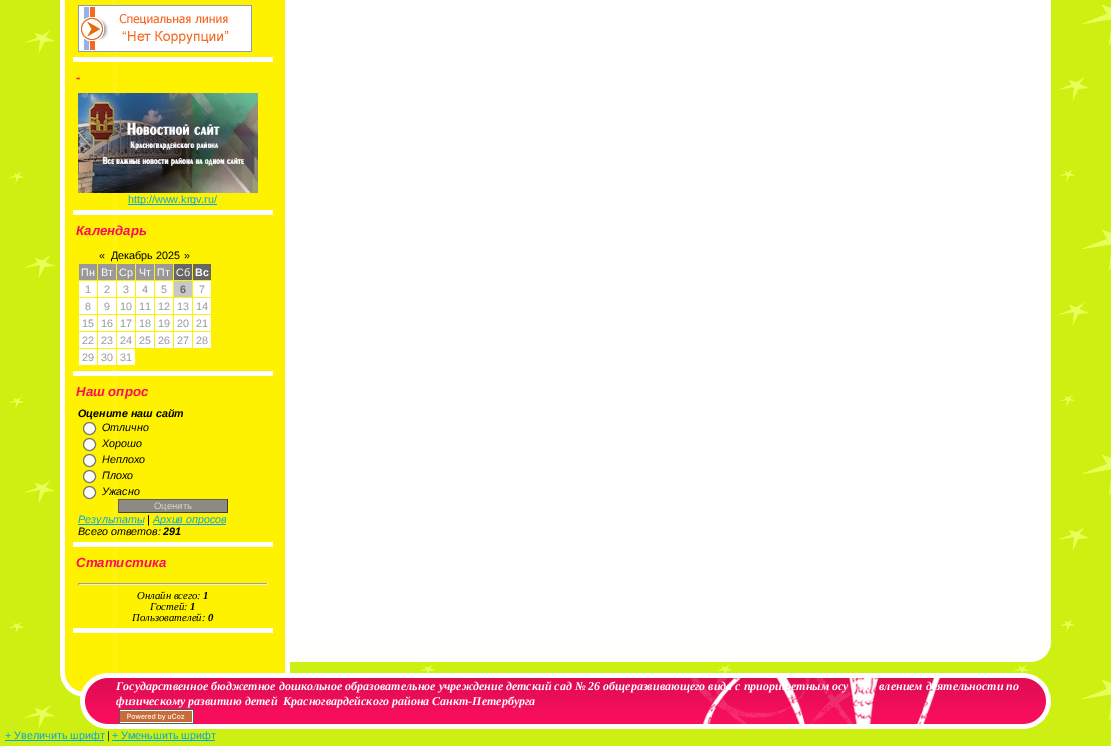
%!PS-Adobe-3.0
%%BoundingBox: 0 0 1111 746
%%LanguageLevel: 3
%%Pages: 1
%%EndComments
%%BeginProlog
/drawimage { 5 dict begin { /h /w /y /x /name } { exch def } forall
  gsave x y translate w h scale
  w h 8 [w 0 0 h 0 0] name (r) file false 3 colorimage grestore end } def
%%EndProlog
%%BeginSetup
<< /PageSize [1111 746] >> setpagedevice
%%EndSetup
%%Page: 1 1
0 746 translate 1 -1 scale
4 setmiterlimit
0.808 0.937 0.071 setrgbcolor
0 0 1111 746 rectfill
(images/1.raw) 9 0 1102 728 drawimage
(images/2.raw) 60 0 225 673 drawimage
1 setgray
73 57 200 5 rectfill
(images/3.raw) 78 5 174 47 drawimage
73 210 200 5 rectfill
(images/4.raw) 78 93 180 100 drawimage
0.016 0.651 0.89 setrgbcolor
128 204 89 1 rectfill
1 setgray
73 371 200 5 rectfill
0.6 setgray
79 264 18 16 rectfill
98 264 18 16 rectfill
117 264 18 16 rectfill
136 264 18 16 rectfill
155 264 18 16 rectfill
0.4 setgray
174 264 18 16 rectfill
193 264 18 16 rectfill
1 setgray
79 281 18 16 rectfill
98 281 18 16 rectfill
117 281 18 16 rectfill
136 281 18 16 rectfill
155 281 18 16 rectfill
0.784 setgray
174 281 18 16 rectfill
1 setgray
193 281 18 16 rectfill
79 298 18 16 rectfill
98 298 18 16 rectfill
117 298 18 16 rectfill
136 298 18 16 rectfill
155 298 18 16 rectfill
174 298 18 16 rectfill
193 298 18 16 rectfill
79 315 18 16 rectfill
98 315 18 16 rectfill
117 315 18 16 rectfill
136 315 18 16 rectfill
155 315 18 16 rectfill
174 315 18 16 rectfill
193 315 18 16 rectfill
79 332 18 16 rectfill
98 332 18 16 rectfill
117 332 18 16 rectfill
136 332 18 16 rectfill
155 332 18 16 rectfill
174 332 18 16 rectfill
193 332 18 16 rectfill
79 349 18 16 rectfill
98 349 18 16 rectfill
117 349 18 16 rectfill
73 542 200 5 rectfill
newpath 89.5 428.5 6 0 360 arc closepath gsave fill grestore
0.463 setgray
stroke
1 setgray
newpath 89.5 444.5 6 0 360 arc closepath gsave fill grestore
0.463 setgray
stroke
1 setgray
newpath 89.5 460.5 6 0 360 arc closepath gsave fill grestore
0.463 setgray
stroke
1 setgray
newpath 89.5 476.5 6 0 360 arc closepath gsave fill grestore
0.463 setgray
stroke
1 setgray
newpath 89.5 492.5 6 0 360 arc closepath gsave fill grestore
0.463 setgray
stroke
0.553 0.541 0.514 setrgbcolor
119 500 108 12 rectfill
0.38 0.369 0.345 setrgbcolor
118 499 110 1 rectfill
0.255 0.247 0.231 setrgbcolor
227 499 1 14 rectfill
118 512 110 1 rectfill
0.38 0.369 0.345 setrgbcolor
118 499 1 14 rectfill
0.016 0.651 0.89 setrgbcolor
78 524 66 1 rectfill
153 524 73 1 rectfill
1 setgray
73 628 200 5 rectfill
0.624 setgray
78 583 190 1 rectfill
0.933 setgray
267 583 1 2 rectfill
78 584 190 1 rectfill
0.624 setgray
78 583 1 2 rectfill
1 setgray
285 0 766 638 rectfill
(images/5.raw) 285 638 741 35 drawimage
(images/6.raw) 1026 638 25 24 drawimage
(images/7.raw) 60 673 56 56 drawimage
(images/8.raw) 116 673 910 56 drawimage
(images/9.raw) 119 709 75 15 drawimage
(images/10.raw) 1026 673 25 56 drawimage
0.016 0.651 0.89 setrgbcolor
5 740 99 1 rectfill
112 740 103 1 rectfill
/LiberationSans-Bold [13.25 0 0 -13.25 0 0] selectfont
0.984 0.051 0.365 setrgbcolor
76 82 moveto (-) show
/LiberationSans-Regular [10.75 0 0 -10.75 0 0] selectfont
0.016 0.651 0.89 setrgbcolor
128 203 moveto (http://www.krgv.ru/) show
/LiberationSans-BoldItalic [13.25 0 0 -13.25 0 0] selectfont
0.984 0.051 0.365 setrgbcolor
76 235 moveto (Календарь) show
/LiberationSans-Regular [10.75 0 0 -10.75 0 0] selectfont
0 setgray
99 259 moveto («) show
111 259 moveto (Декабрь 2025) show
184 259 moveto (») show
1 setgray
81 276 moveto (Пн) show
101 276 moveto (Вт) show
119 276 moveto (Ср) show
139 276 moveto (Чт) show
157 276 moveto (Пт) show
176 276 moveto (Сб) show
/LiberationSans-Bold [10.75 0 0 -10.75 0 0] selectfont
195 276 moveto (Вс) show
/LiberationSans-Regular [10.75 0 0 -10.75 0 0] selectfont
0.6 setgray
85 293 moveto (1) show
104 293 moveto (2) show
123 293 moveto (3) show
142 293 moveto (4) show
161 293 moveto (5) show
/LiberationSans-Bold [10.75 0 0 -10.75 0 0] selectfont
0.4 setgray
180 293 moveto (6) show
/LiberationSans-Regular [10.75 0 0 -10.75 0 0] selectfont
0.6 setgray
199 293 moveto (7) show
85 310 moveto (8) show
104 310 moveto (9) show
120 310 moveto (10) show
139 310 moveto (11) show
158 310 moveto (12) show
177 310 moveto (13) show
196 310 moveto (14) show
82 327 moveto (15) show
101 327 moveto (16) show
120 327 moveto (17) show
139 327 moveto (18) show
158 327 moveto (19) show
177 327 moveto (20) show
196 327 moveto (21) show
82 344 moveto (22) show
101 344 moveto (23) show
120 344 moveto (24) show
139 344 moveto (25) show
158 344 moveto (26) show
177 344 moveto (27) show
196 344 moveto (28) show
82 361 moveto (29) show
101 361 moveto (30) show
120 361 moveto (31) show
/LiberationSans-BoldItalic [13.25 0 0 -13.25 0 0] selectfont
0.984 0.051 0.365 setrgbcolor
76 396 moveto (Наш опрос) show
/LiberationSans-BoldItalic [10.75 0 0 -10.75 0 0] selectfont
0 setgray
78 417 moveto (Оцените наш сайт) show
/LiberationSans-Italic [10.75 0 0 -10.75 0 0] selectfont
102 431 moveto (Отлично) show
102 447 moveto (Хорошо) show
102 463 moveto (Неплохо) show
102 479 moveto (Плохо) show
102 495 moveto (Ужасно) show
/LiberationSans-Regular [9.5 0 0 -9.5 0 0] selectfont
0.855 0.843 0.8 setrgbcolor
154 509 moveto (Оценить) show
/LiberationSans-Italic [10.75 0 0 -10.75 0 0] selectfont
0.016 0.651 0.89 setrgbcolor
78 523 moveto (Результаты) show
0 setgray
147 523 moveto (|) show
0.016 0.651 0.89 setrgbcolor
153 523 moveto (Архив опросов) show
0 setgray
78 535 moveto (Всего ответов:) show
/LiberationSans-BoldItalic [10.75 0 0 -10.75 0 0] selectfont
163 535 moveto (291) show
/LiberationSans-BoldItalic [13.25 0 0 -13.25 0 0] selectfont
0.984 0.051 0.365 setrgbcolor
76 567 moveto (Статистика) show
/LiberationSerif-Italic [10.75 0 0 -10.75 0 0] selectfont
0 setgray
137 599 moveto (Онлайн всего:) show
/LiberationSerif-BoldItalic [10.75 0 0 -10.75 0 0] selectfont
203 599 moveto (1) show
/LiberationSerif-Italic [10.75 0 0 -10.75 0 0] selectfont
150 610 moveto (Гостей:) show
/LiberationSerif-BoldItalic [10.75 0 0 -10.75 0 0] selectfont
190 610 moveto (1) show
/LiberationSerif-Italic [10.75 0 0 -10.75 0 0] selectfont
132 621 moveto (Пользователей:) show
/LiberationSerif-BoldItalic [10.75 0 0 -10.75 0 0] selectfont
208 621 moveto (0) show
/LiberationSerif-BoldItalic [12 0 0 -12 0 0] selectfont
1 setgray
116 690 moveto (Государственное бюджетное дошкольное образовательное учреждение детский сад № 26 общеразвивающего вида с приоритетным осу) show
879 690 moveto (влением деятельности по) show
116 705 moveto (физическому развитию детей  Красногвардейского района Санкт-Петербурга) show
/LiberationSans-Regular [10.75 0 0 -10.75 0 0] selectfont
0.016 0.651 0.89 setrgbcolor
5 739 moveto (+ Увеличить шрифт) show
0 setgray
107 739 moveto (|) show
0.016 0.651 0.89 setrgbcolor
112 739 moveto (+ Уменьшить шрифт) show
showpage
%%EOF
